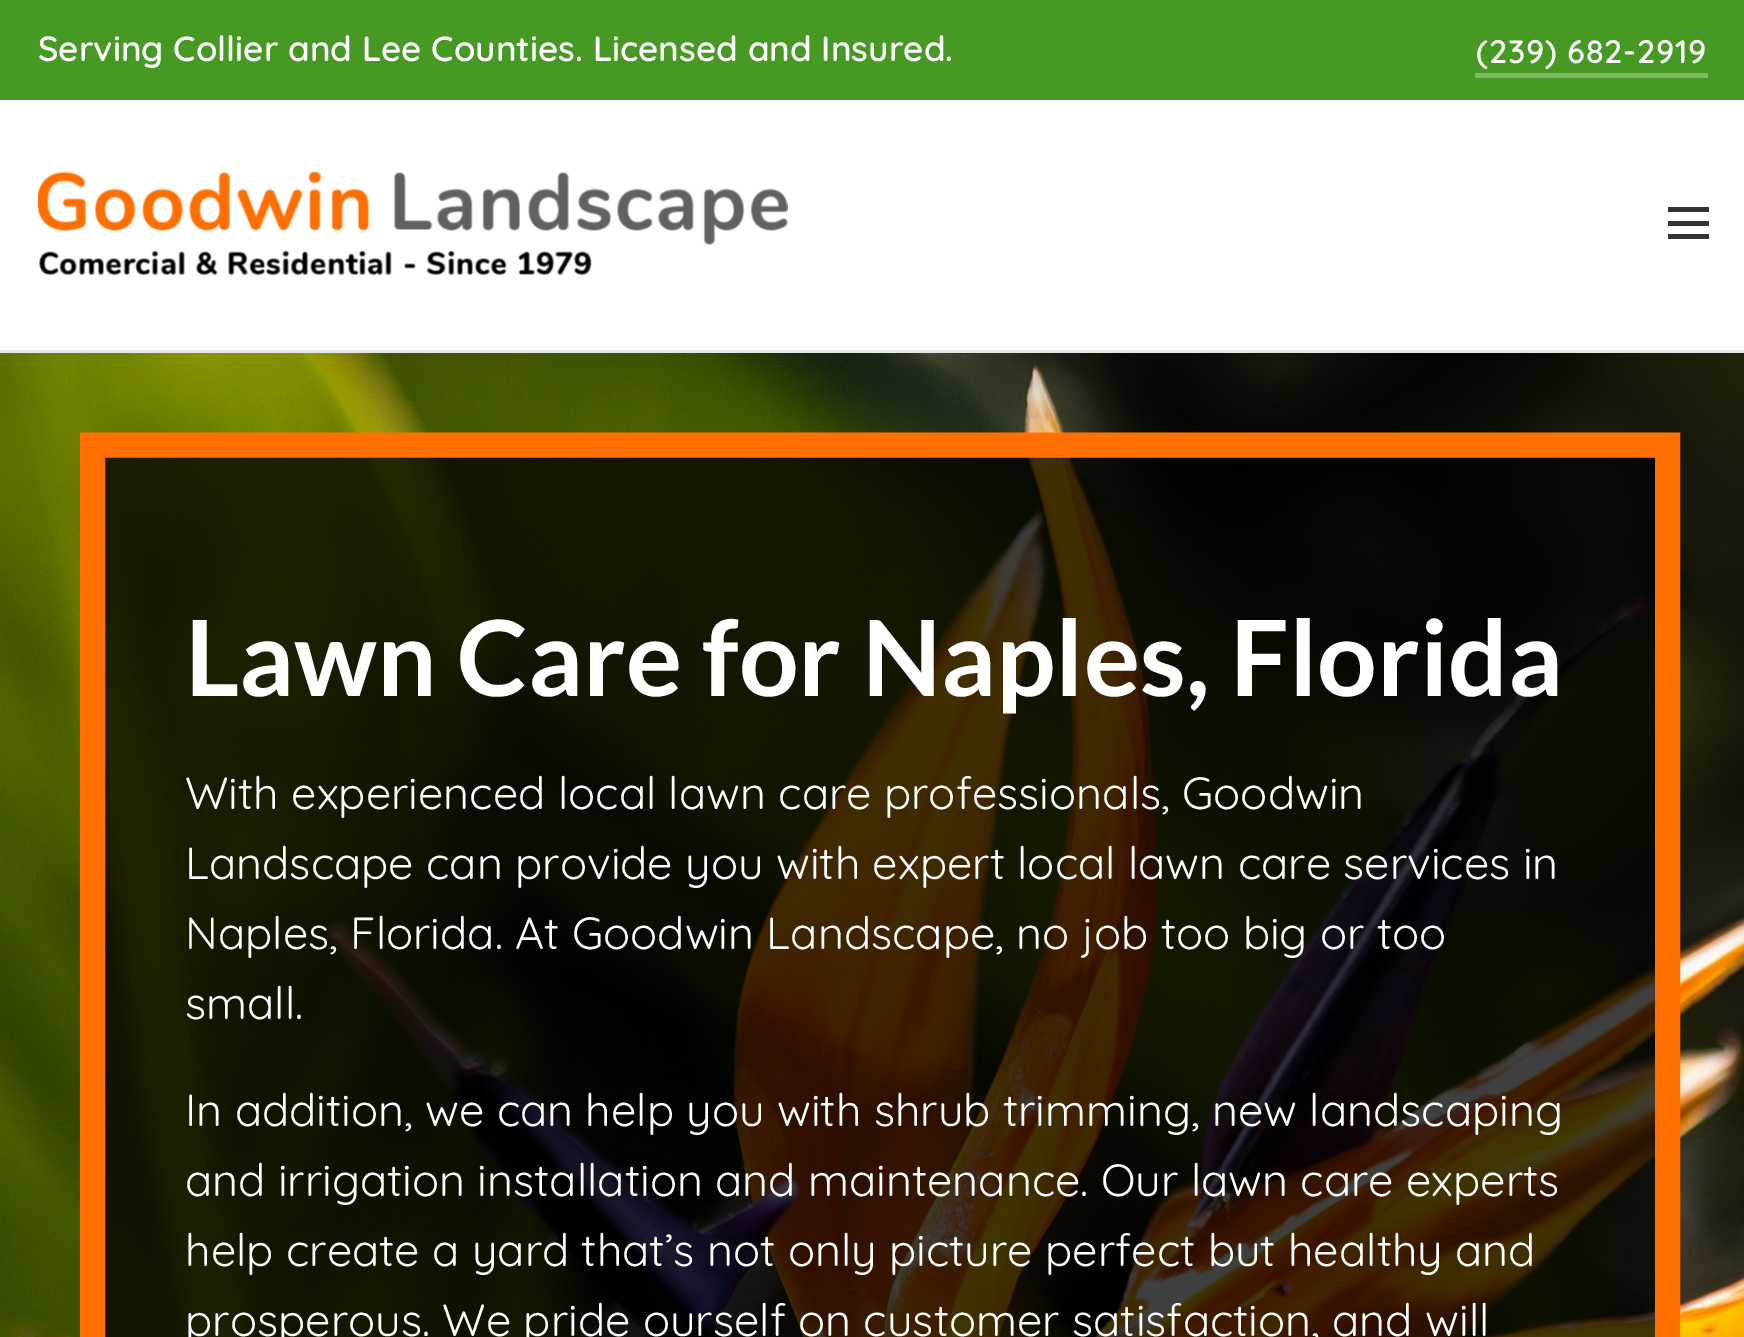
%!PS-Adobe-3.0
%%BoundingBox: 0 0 1744 1337
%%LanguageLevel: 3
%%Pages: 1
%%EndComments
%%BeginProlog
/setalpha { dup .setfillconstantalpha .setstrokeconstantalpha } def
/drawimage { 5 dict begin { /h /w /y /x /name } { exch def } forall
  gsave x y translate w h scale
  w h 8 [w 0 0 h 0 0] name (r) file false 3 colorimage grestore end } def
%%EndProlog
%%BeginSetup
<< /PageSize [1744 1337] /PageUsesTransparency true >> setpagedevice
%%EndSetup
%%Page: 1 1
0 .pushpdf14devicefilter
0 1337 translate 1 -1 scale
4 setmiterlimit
1 setgray
0 0 1744 1337 rectfill
0.275 0.6 0.137 setrgbcolor
0 0 1744 100 rectfill
0.494 0.722 0.396 setrgbcolor
1475 73 233 5 rectfill
0.902 setgray
0 350 1744 3 rectfill
(images/1.raw) 38 171 750 105 drawimage
0.2 setgray
newpath 1668 207 moveto 1709 207 lineto 1709 212 lineto 1668 212 lineto closepath 1668 221 moveto 1709 221 lineto 1709 226 lineto 1668 226 lineto closepath 1668 234 moveto 1709 234 lineto 1709 239 lineto 1668 239 lineto closepath fill
(images/2.raw) 0 353 1744 984 drawimage
0.75 setalpha
0 setgray
105 457 1550 880 rectfill
1 setalpha
1 0.439 0.004 setrgbcolor
25 setlinewidth
newpath 92.5 445 moveto 1667.5 445 lineto 1667.5 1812.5 lineto 92.5 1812.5 lineto closepath stroke
/Quicksand-SemiBold [35 0 0 -35 0 0] selectfont
1 setgray
38 61 moveto (Serving Collier and Lee Counties. Licensed and Insured.) show
/Quicksand-SemiBold [32.5 0 0 -32.5 0 0] selectfont
1476 63 moveto 0.75 0 (\(239\) 682-2919) ashow
/Lato-Bold [105 0 0 -105 0 0] selectfont
185 696 moveto (Lawn Care for Naples, Florida) show
/Quicksand-Regular [45 0 0 -45 0 0] selectfont
185 809 moveto (With experienced local lawn care professionals, Goodwin) show
185 879 moveto (Landscape can provide you with expert local lawn care services in) show
185 949 moveto (Naples, Florida. At Goodwin Landscape, no job too big or too) show
185 1019 moveto (small.) show
185 1126 moveto (In addition, we can help you with shrub trimming, new landscaping) show
185 1196 moveto (and irrigation installation and maintenance. Our lawn care experts) show
185 1266 moveto (help create a yard that’s not only picture perfect but healthy and) show
185 1336 moveto (prosperous. We pride ourself on customer satisfaction, and will) show
.poppdf14devicefilter showpage
%%EOF
